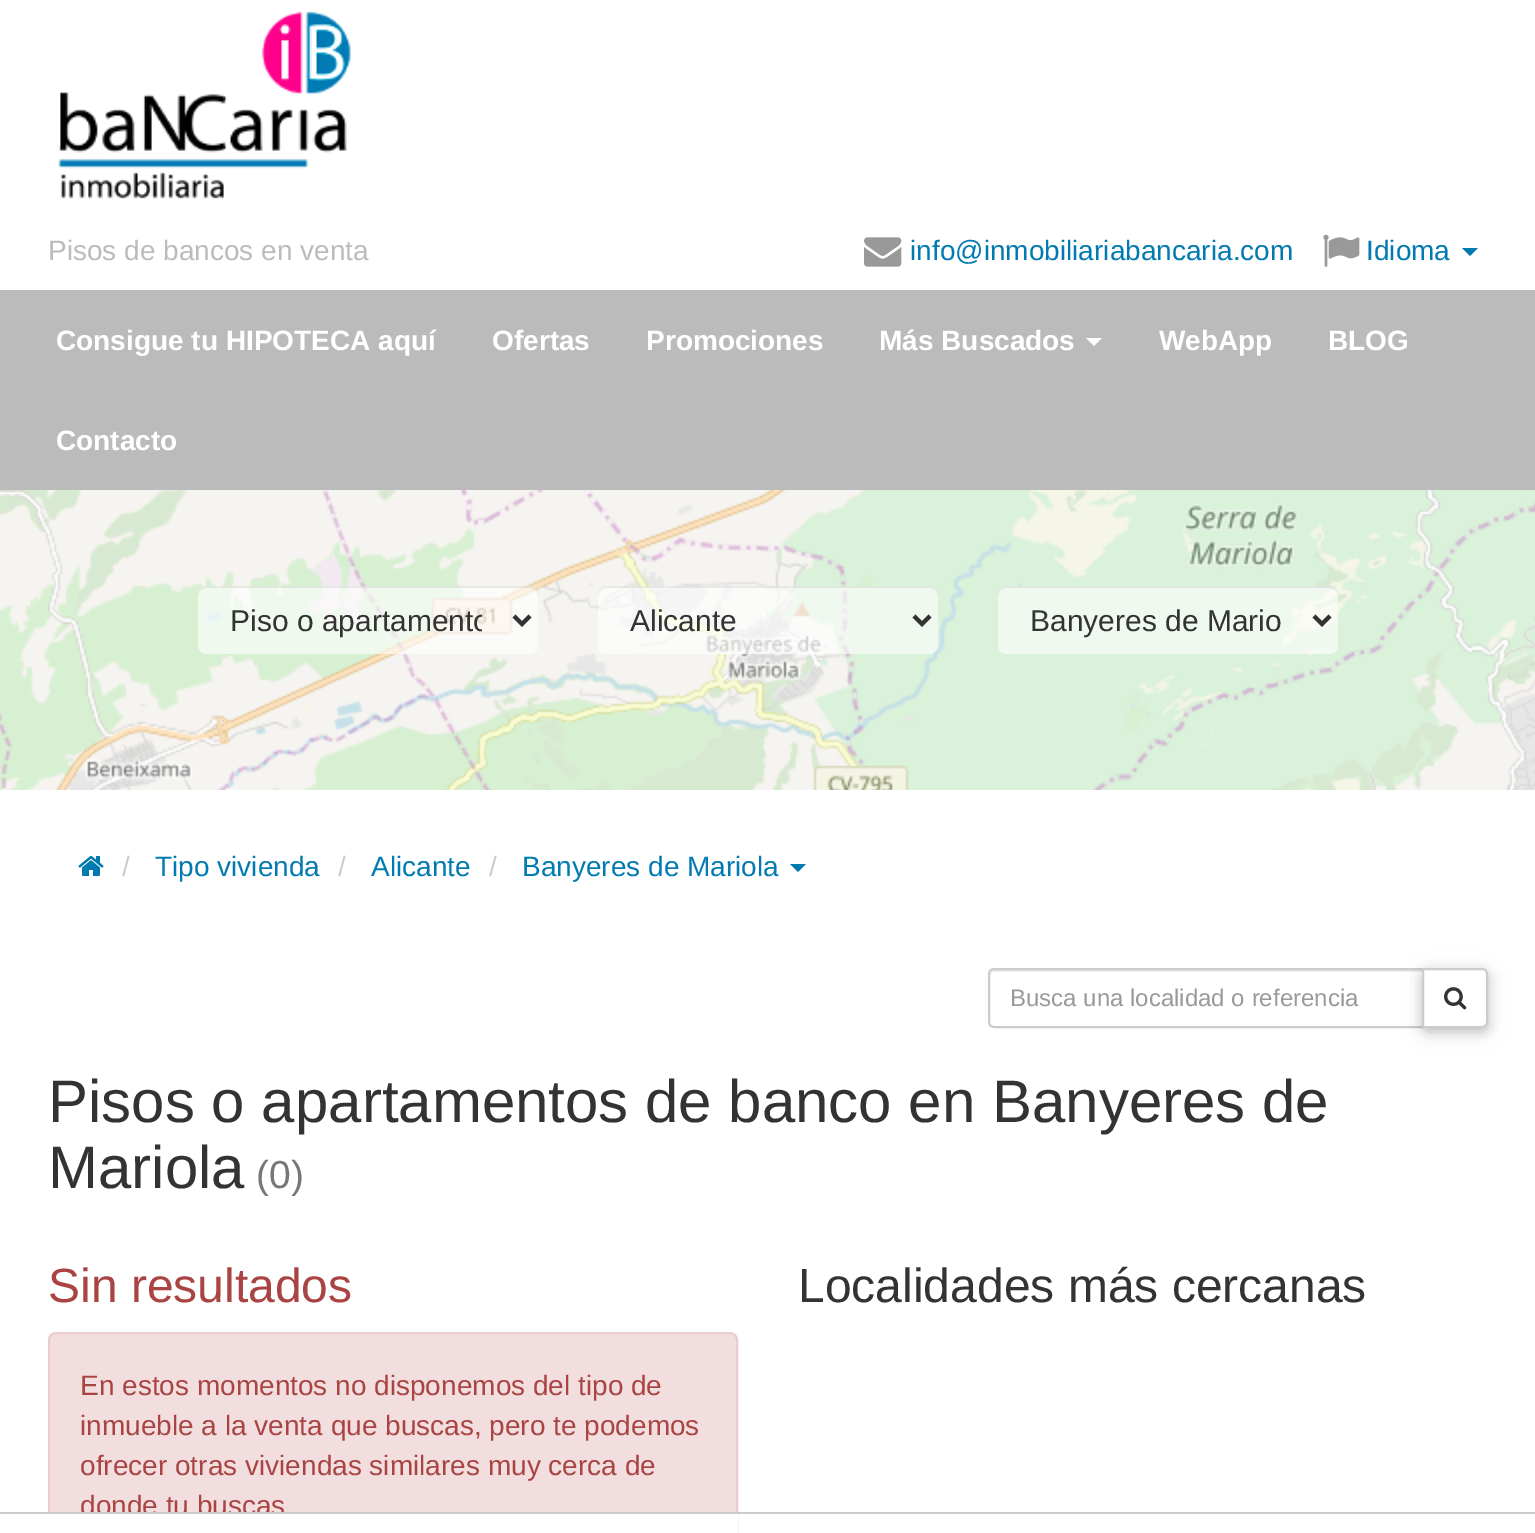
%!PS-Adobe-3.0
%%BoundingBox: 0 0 1535 1533
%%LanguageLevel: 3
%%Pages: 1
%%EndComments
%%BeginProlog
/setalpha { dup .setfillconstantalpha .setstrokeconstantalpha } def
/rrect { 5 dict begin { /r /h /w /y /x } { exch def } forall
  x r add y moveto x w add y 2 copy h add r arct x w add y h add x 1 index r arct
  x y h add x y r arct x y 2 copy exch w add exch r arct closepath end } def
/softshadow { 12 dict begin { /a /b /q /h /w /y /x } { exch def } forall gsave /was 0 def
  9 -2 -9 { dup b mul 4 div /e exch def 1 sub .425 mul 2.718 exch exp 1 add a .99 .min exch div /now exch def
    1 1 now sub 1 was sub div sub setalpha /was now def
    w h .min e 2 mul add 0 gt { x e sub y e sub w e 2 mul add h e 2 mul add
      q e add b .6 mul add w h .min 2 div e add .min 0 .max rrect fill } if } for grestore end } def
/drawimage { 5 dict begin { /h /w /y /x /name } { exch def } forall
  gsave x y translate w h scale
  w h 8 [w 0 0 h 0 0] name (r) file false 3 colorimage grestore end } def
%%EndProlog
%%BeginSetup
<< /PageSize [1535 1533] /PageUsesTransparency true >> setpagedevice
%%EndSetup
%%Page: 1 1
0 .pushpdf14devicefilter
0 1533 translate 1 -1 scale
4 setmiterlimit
1 setgray
0 0 1535 1533 rectfill
(images/1.raw) 58 11 294 188 drawimage
(images/2.raw) 864 237 38 30 drawimage
(images/3.raw) 1323 234 37 33 drawimage
0 0.478 0.69 setrgbcolor
newpath 1462 248 moveto 1478 248 lineto 1470 256 lineto closepath fill
0.733 setgray
0 290 1535 200 rectfill
1 setgray
newpath 1086 338 moveto 1102 338 lineto 1094 346 lineto closepath fill
(images/4.raw) 0 490 1535 300 drawimage
0.6 setalpha
198 586 340 68 8 rrect fill
0.07 setalpha
0 setgray
newpath 206 588 moveto 530 588 lineto 534 588 538 592 538 596 curveto 538 594 lineto 538 590 534 586 530 586 curveto 206 586 lineto 202 586 198 590 198 594 curveto 198 596 lineto 198 592 202 588 206 588 curveto closepath fill
1 setalpha
0.2 setgray
4 setlinewidth
newpath 514 616 moveto 522 624 lineto 530 616 lineto stroke
0.6 setalpha
1 setgray
598 586 340 68 8 rrect fill
0.07 setalpha
0 setgray
newpath 606 588 moveto 930 588 lineto 934 588 938 592 938 596 curveto 938 594 lineto 938 590 934 586 930 586 curveto 606 586 lineto 602 586 598 590 598 594 curveto 598 596 lineto 598 592 602 588 606 588 curveto closepath fill
1 setalpha
0.2 setgray
newpath 914 616 moveto 922 624 lineto 930 616 lineto stroke
0.6 setalpha
1 setgray
998 586 340 68 8 rrect fill
0.07 setalpha
0 setgray
newpath 1006 588 moveto 1330 588 lineto 1334 588 1338 592 1338 596 curveto 1338 594 lineto 1338 590 1334 586 1330 586 curveto 1006 586 lineto 1002 586 998 590 998 594 curveto 998 596 lineto 998 592 1002 588 1006 588 curveto closepath fill
1 setalpha
0.2 setgray
newpath 1314 616 moveto 1322 624 lineto 1330 616 lineto stroke
(images/5.raw) 78 856 26 20 drawimage
0 0.478 0.69 setrgbcolor
newpath 790 864 moveto 806 864 lineto 798 872 lineto closepath fill
0.925 setgray
newpath 994 972 moveto 1422 972 lineto 1422 970 lineto 994 970 lineto 992 970 990 972 990 974 curveto 990 976 lineto 990 974 992 972 994 972 curveto closepath fill
0.8 setgray
2 setlinewidth
newpath 994 969 moveto 1423 969 lineto 1423 1027 lineto 994 1027 lineto 991 1027 989 1025 989 1022 curveto 989 974 lineto 989 971 991 969 994 969 curveto closepath stroke
0 setgray
1422 972 66 60 6 10 0.12 softshadow
1422 972 66 60 6 5 0.16 softshadow
1 setgray
newpath 1423 969 moveto 1482 969 lineto 1485 969 1487 971 1487 974 curveto 1487 1022 lineto 1487 1025 1485 1027 1482 1027 curveto 1423 1027 lineto closepath gsave fill grestore
0.8 setgray
stroke
(images/6.raw) 1444 987 23 23 drawimage
0.949 0.871 0.871 setrgbcolor
49 1333 688 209 7 rrect gsave fill grestore
0.922 0.8 0.82 setrgbcolor
stroke
/LiberationSans-Regular [28 0 0 -28 0 0] selectfont
0.733 setgray
48 260 moveto (Pisos de bancos en venta) show
0 0.478 0.69 setrgbcolor
910 260 moveto (info@inmobiliariabancaria.com) show
1366 260 moveto (Idioma) show
/LiberationSans-Bold [28 0 0 -28 0 0] selectfont
1 setgray
56 350 moveto (Consigue tu HIPOTECA aquí) show
492 350 moveto (Ofertas) show
646 350 moveto (Promociones) show
879 350 moveto (Más Buscados) show
1159 350 moveto (WebApp) show
1328 350 moveto (BLOG) show
56 450 moveto (Contacto) show
gsave
230 602 252 38 rectclip
/LiberationSans-Regular [30 0 0 -30 0 0] selectfont
0.2 setgray
230 631 moveto (Piso o apartamento) show
grestore
/LiberationSans-Regular [30 0 0 -30 0 0] selectfont
0.2 setgray
630 631 moveto (Alicante) show
1030 631 moveto (Banyeres de Mario) show
/LiberationSans-Regular [28 0 0 -28 0 0] selectfont
0.8 setgray
122 876 moveto (/) show
0 0.478 0.69 setrgbcolor
155 876 moveto (Tipo vivienda) show
0.8 setgray
338 876 moveto (/) show
0 0.478 0.69 setrgbcolor
371 876 moveto (Alicante) show
0.8 setgray
489 876 moveto (/) show
0 0.478 0.69 setrgbcolor
522 876 moveto (Banyeres de Mariola) show
/LiberationSans-Regular [24 0 0 -24 0 0] selectfont
0.6 setgray
1010 1006 moveto (Busca una localidad o referencia) show
/LiberationSans-Regular [60 0 0 -60 0 0] selectfont
0.2 setgray
48 1122 moveto (Pisos o apartamentos de banco en Banyeres de) show
48 1188 moveto (Mariola) show
/LiberationSans-Regular [39 0 0 -39 0 0] selectfont
0.467 setgray
256 1188 moveto (\(0\)) show
/LiberationSans-Regular [48 0 0 -48 0 0] selectfont
0.663 0.267 0.259 setrgbcolor
48 1302 moveto (Sin resultados) show
/LiberationSans-Regular [28 0 0 -28 0 0] selectfont
80 1395 moveto (En estos momentos no disponemos del tipo de) show
80 1435 moveto (inmueble a la venta que buscas, pero te podemos) show
80 1475 moveto (ofrecer otras viviendas similares muy cerca de) show
80 1515 moveto (donde tu buscas) show
/LiberationSans-Regular [48 0 0 -48 0 0] selectfont
0.2 setgray
798 1302 moveto (Localidades más cercanas) show
1 setgray
48 1514 690 19 rectfill
0.8 setgray
0 1512 1535 2 rectfill
.poppdf14devicefilter showpage
%%EOF
